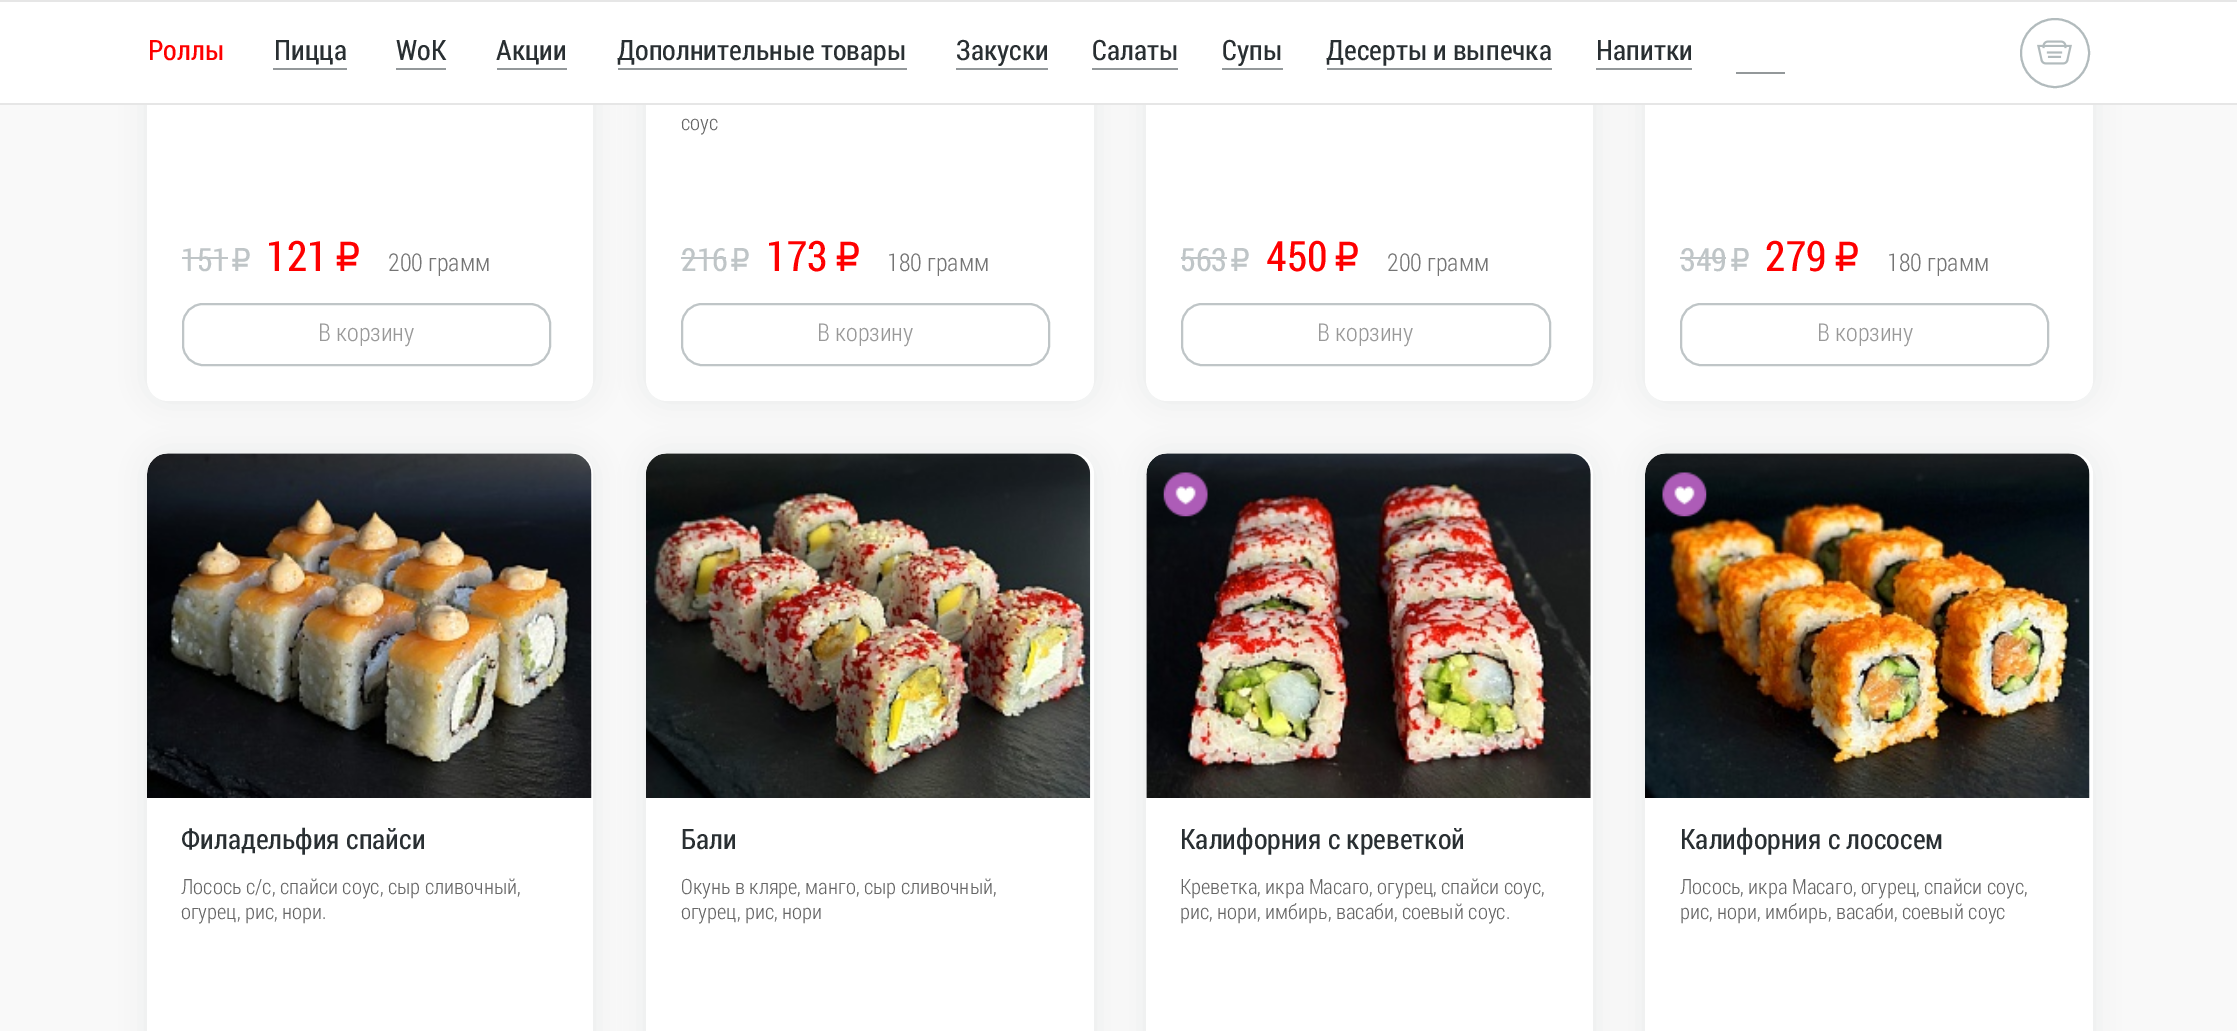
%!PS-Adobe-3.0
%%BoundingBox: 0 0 2237 1031
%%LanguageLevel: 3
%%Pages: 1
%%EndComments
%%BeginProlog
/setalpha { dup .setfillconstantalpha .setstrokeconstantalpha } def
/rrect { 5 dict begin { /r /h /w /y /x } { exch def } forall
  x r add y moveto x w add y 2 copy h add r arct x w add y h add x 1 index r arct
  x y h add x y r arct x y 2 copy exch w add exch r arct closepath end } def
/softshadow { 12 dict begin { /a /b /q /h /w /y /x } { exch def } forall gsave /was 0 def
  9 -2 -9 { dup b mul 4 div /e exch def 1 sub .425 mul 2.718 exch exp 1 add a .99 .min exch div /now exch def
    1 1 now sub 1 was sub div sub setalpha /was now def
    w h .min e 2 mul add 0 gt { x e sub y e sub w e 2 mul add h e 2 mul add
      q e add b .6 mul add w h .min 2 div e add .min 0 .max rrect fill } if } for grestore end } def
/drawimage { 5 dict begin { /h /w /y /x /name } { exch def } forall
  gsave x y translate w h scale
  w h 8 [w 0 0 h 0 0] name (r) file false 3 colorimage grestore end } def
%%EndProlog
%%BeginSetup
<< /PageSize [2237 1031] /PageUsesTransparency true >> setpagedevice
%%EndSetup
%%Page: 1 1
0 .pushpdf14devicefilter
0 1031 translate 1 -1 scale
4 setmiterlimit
0.976 setgray
0 0 2237 1031 rectfill
0.318 0.361 0.384 setrgbcolor
147 -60 446 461 21 13 0.1 softshadow
1 setgray
147 -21 446 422 21 rrect fill
0.318 0.361 0.384 setrgbcolor
646 -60 448 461 21 13 0.1 softshadow
1 setgray
646 -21 448 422 21 rrect fill
0.318 0.361 0.384 setrgbcolor
1146 -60 447 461 21 13 0.1 softshadow
1 setgray
1146 -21 447 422 21 rrect fill
0.318 0.361 0.384 setrgbcolor
1645 -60 448 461 21 13 0.1 softshadow
1 setgray
1645 -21 448 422 21 rrect fill
0 2 2237 101 rectfill
0.902 setgray
0 0 2237 2 rectfill
0 103 2237 2 rectfill
0.576 0.596 0.604 setrgbcolor
273 68 74 2 rectfill
396 68 50 2 rectfill
497 68 70 2 rectfill
618 68 289 2 rectfill
956 68 92 2 rectfill
1092 68 86 2 rectfill
1222 68 61 2 rectfill
1327 68 225 2 rectfill
1596 68 96 2 rectfill
1736 72 49 2 rectfill
0.698 0.733 0.741 setrgbcolor
2 setlinewidth
newpath 2055 53 34 0 360 arc closepath stroke
(images/1.raw) 2037 40 35 25 drawimage
0.749 0.773 0.78 setrgbcolor
182 257 46 2 rectfill
183 304 367 61 20 rrect stroke
681 257 45 2 rectfill
682 304 367 61 20 rrect stroke
1181 257 46 2 rectfill
1182 304 368 61 20 rrect stroke
1680 257 46 2 rectfill
1681 304 367 61 20 rrect stroke
0.318 0.361 0.384 setrgbcolor
147 453 446 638 21 13 0.1 softshadow
1 setgray
147 453 446 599 21 rrect fill
(images/2.raw) 147 453 445 345 drawimage
0.318 0.361 0.384 setrgbcolor
646 453 448 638 21 13 0.1 softshadow
1 setgray
646 453 448 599 21 rrect fill
(images/3.raw) 645 453 446 345 drawimage
0.318 0.361 0.384 setrgbcolor
1146 453 447 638 21 13 0.1 softshadow
1 setgray
1146 453 447 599 21 rrect fill
(images/4.raw) 1146 453 445 345 drawimage
(images/5.raw) 1163 472 45 45 drawimage
0.318 0.361 0.384 setrgbcolor
1645 453 448 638 21 13 0.1 softshadow
1 setgray
1645 453 448 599 21 rrect fill
(images/6.raw) 1645 453 445 345 drawimage
(images/7.raw) 1662 472 45 45 drawimage
/RobotoCondensed-Regular [28 0 0 -28 0 0] selectfont
0.996 0 0 setrgbcolor
148 60 moveto (Роллы) show
0.161 0.184 0.196 setrgbcolor
274 60 moveto (Пицца) show
396 60 moveto (WoK) show
496 60 moveto (Акции) show
617 60 moveto (Дополнительные товары) show
956 60 moveto (Закуски) show
1092 60 moveto (Салаты) show
1222 60 moveto (Супы) show
1326 60 moveto (Десерты и выпечка) show
1596 60 moveto (Напитки) show
/RobotoCondensed-Regular [32 0 0 -32 0 0] selectfont
0.749 0.773 0.78 setrgbcolor
181 271 moveto (151) show
/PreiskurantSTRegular-Regular [37 0 0 -37 0 0] selectfont
231 271 moveto (R) show
/RobotoCondensed-Regular [42 0 0 -42 0 0] selectfont
0.996 0 0 setrgbcolor
266 271 moveto (121) show
/PreiskurantSTRegular-Regular [47 0 0 -47 0 0] selectfont
335 271 moveto (R) show
/RobotoCondensed-Light [24.5 0 0 -24.5 0 0] selectfont
0.455 setgray
388 271 moveto (200 грамм) show
0.6 setgray
318 341 moveto (В корзину) show
/RobotoCondensed-Light [21 0 0 -21 0 0] selectfont
0.4 setgray
681 130 moveto (соус) show
/RobotoCondensed-Regular [32 0 0 -32 0 0] selectfont
0.749 0.773 0.78 setrgbcolor
681 271 moveto (216) show
/PreiskurantSTRegular-Regular [37 0 0 -37 0 0] selectfont
730 271 moveto (R) show
/RobotoCondensed-Regular [42 0 0 -42 0 0] selectfont
0.996 0 0 setrgbcolor
766 271 moveto (173) show
/PreiskurantSTRegular-Regular [47 0 0 -47 0 0] selectfont
835 271 moveto (R) show
/RobotoCondensed-Light [24.5 0 0 -24.5 0 0] selectfont
0.455 setgray
887 271 moveto (180 грамм) show
0.6 setgray
817 341 moveto (В корзину) show
/RobotoCondensed-Regular [32 0 0 -32 0 0] selectfont
0.749 0.773 0.78 setrgbcolor
1180 271 moveto (563) show
/PreiskurantSTRegular-Regular [37 0 0 -37 0 0] selectfont
1230 271 moveto (R) show
/RobotoCondensed-Regular [42 0 0 -42 0 0] selectfont
0.996 0 0 setrgbcolor
1266 271 moveto (450) show
/PreiskurantSTRegular-Regular [47 0 0 -47 0 0] selectfont
1334 271 moveto (R) show
/RobotoCondensed-Light [24.5 0 0 -24.5 0 0] selectfont
0.455 setgray
1387 271 moveto (200 грамм) show
0.6 setgray
1317 341 moveto (В корзину) show
/RobotoCondensed-Regular [32 0 0 -32 0 0] selectfont
0.749 0.773 0.78 setrgbcolor
1680 271 moveto (349) show
/PreiskurantSTRegular-Regular [37 0 0 -37 0 0] selectfont
1730 271 moveto (R) show
/RobotoCondensed-Regular [42 0 0 -42 0 0] selectfont
0.996 0 0 setrgbcolor
1765 271 moveto (279) show
/PreiskurantSTRegular-Regular [47 0 0 -47 0 0] selectfont
1834 271 moveto (R) show
/RobotoCondensed-Light [24.5 0 0 -24.5 0 0] selectfont
0.455 setgray
1887 271 moveto (180 грамм) show
0.6 setgray
1817 341 moveto (В корзину) show
/RobotoCondensed-Regular [28 0 0 -28 0 0] selectfont
0.161 0.184 0.196 setrgbcolor
181 849 moveto (Филадельфия спайси) show
/RobotoCondensed-Light [21 0 0 -21 0 0] selectfont
0.4 setgray
181 894 moveto (Лосось с/с, спайси соус, сыр сливочный,) show
181 919 moveto (огурец, рис, нори.) show
/RobotoCondensed-Regular [28 0 0 -28 0 0] selectfont
0.161 0.184 0.196 setrgbcolor
681 849 moveto (Бали) show
/RobotoCondensed-Light [21 0 0 -21 0 0] selectfont
0.4 setgray
681 894 moveto (Окунь в кляре, манго, сыр сливочный,) show
681 919 moveto (огурец, рис, нори) show
/RobotoCondensed-Regular [28 0 0 -28 0 0] selectfont
0.161 0.184 0.196 setrgbcolor
1180 849 moveto (Калифорния с креветкой) show
/RobotoCondensed-Light [21 0 0 -21 0 0] selectfont
0.4 setgray
1180 894 moveto (Креветка, икра Масаго, огурец, спайси соус,) show
1180 919 moveto (рис, нори, имбирь, васаби, соевый соус.) show
/RobotoCondensed-Regular [28 0 0 -28 0 0] selectfont
0.161 0.184 0.196 setrgbcolor
1680 849 moveto (Калифорния с лососем) show
/RobotoCondensed-Light [21 0 0 -21 0 0] selectfont
0.4 setgray
1680 894 moveto (Лосось, икра Масаго, огурец, спайси соус,) show
1680 919 moveto (рис, нори, имбирь, васаби, соевый соус) show
.poppdf14devicefilter showpage
%%EOF
